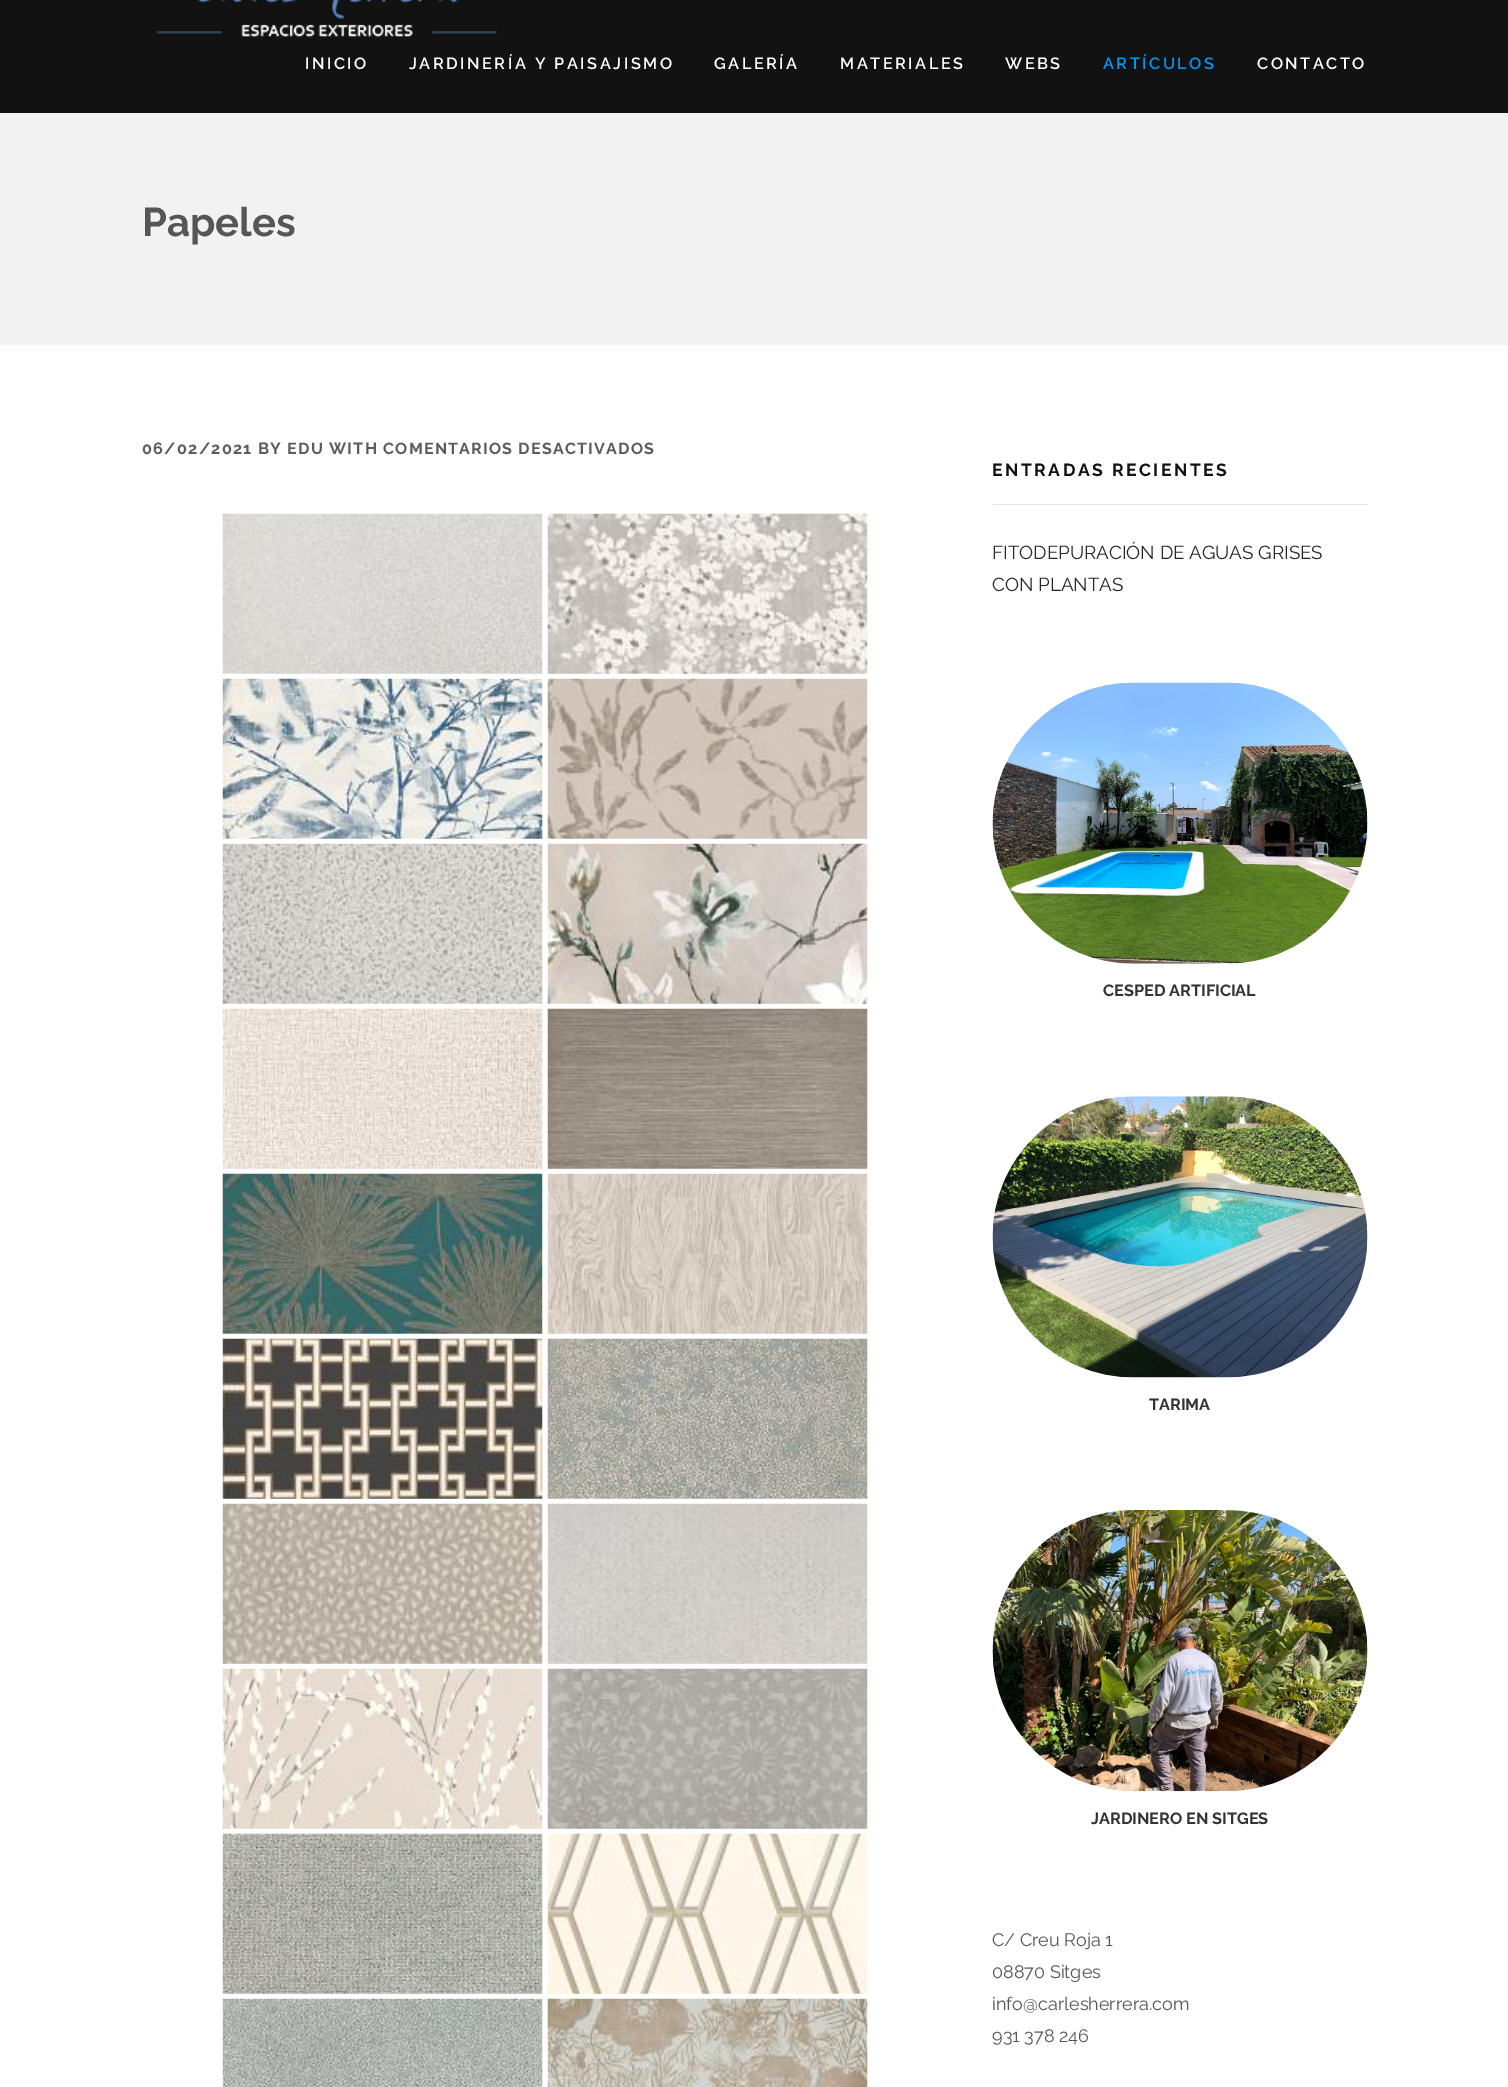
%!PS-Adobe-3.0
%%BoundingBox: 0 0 1508 2087
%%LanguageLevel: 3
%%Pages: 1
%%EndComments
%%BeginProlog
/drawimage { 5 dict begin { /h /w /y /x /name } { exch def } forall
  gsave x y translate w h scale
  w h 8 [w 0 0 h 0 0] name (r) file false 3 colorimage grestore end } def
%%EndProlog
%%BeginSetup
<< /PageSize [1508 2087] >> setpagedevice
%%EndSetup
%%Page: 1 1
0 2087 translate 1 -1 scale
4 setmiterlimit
1 setgray
0 0 1508 2087 rectfill
0.071 setgray
0 0 1508 113 rectfill
(images/1.raw) 156 0 342 37 drawimage
0.949 setgray
0 113 1508 232 rectfill
(images/2.raw) 222 513 321 161 drawimage
(images/3.raw) 547 513 321 161 drawimage
(images/4.raw) 222 678 321 161 drawimage
(images/5.raw) 547 678 321 161 drawimage
(images/6.raw) 222 843 321 161 drawimage
(images/7.raw) 547 843 321 161 drawimage
(images/8.raw) 222 1008 321 161 drawimage
(images/9.raw) 547 1008 321 161 drawimage
(images/10.raw) 222 1173 321 161 drawimage
(images/11.raw) 547 1173 321 161 drawimage
(images/12.raw) 222 1338 321 161 drawimage
(images/13.raw) 547 1338 321 161 drawimage
(images/14.raw) 222 1503 321 161 drawimage
(images/15.raw) 547 1503 321 161 drawimage
(images/16.raw) 222 1668 321 161 drawimage
(images/17.raw) 547 1668 321 161 drawimage
(images/18.raw) 222 1833 321 161 drawimage
(images/19.raw) 547 1833 321 161 drawimage
(images/20.raw) 222 1998 321 89 drawimage
(images/21.raw) 547 1998 321 89 drawimage
0.894 setgray
993 504 375 1 rectfill
(images/22.raw) 992 682 376 282 drawimage
(images/23.raw) 992 1096 376 282 drawimage
(images/24.raw) 992 1510 376 282 drawimage
/Raleway-SemiBold [16.25 0 0 -16.25 0 0] selectfont
1 setgray
305 69 moveto 2.5 0 (INICIO) ashow
409 69 moveto 2.5 0 (JARDINERÍA Y PAISAJISMO) ashow
714 69 moveto 2.5 0 (GALERÍA) ashow
840 69 moveto 2.5 0 (MATERIALES) ashow
1005 69 moveto 2.5 0 (WEBS) ashow
0 0.588 0.969 setrgbcolor
1103 69 moveto 2.5 0 (ARTÍCULOS) ashow
1 setgray
1257 69 moveto 2.5 0 (CONTACTO) ashow
/Raleway-Bold [40 0 0 -40 0 0] selectfont
0.337 setgray
142 236 moveto (Papeles) show
/Raleway-Bold [16.25 0 0 -16.25 0 0] selectfont
0.361 setgray
142 454 moveto 1.25 0 (06/02/2021 BY) ashow
/Raleway-Bold [16 0 0 -16 0 0] selectfont
287 454 moveto 1.25 0 (EDU) ashow
/Raleway-Bold [16.25 0 0 -16.25 0 0] selectfont
329 454 moveto 1.25 0 (WITH) ashow
/Raleway-Bold [16 0 0 -16 0 0] selectfont
383 454 moveto 1.25 0 (COMENTARIOS DESACTIVADOS) ashow
/Raleway-Bold [17.5 0 0 -17.5 0 0] selectfont
0.071 setgray
992 476 moveto 2.5 0 (ENTRADAS RECIENTES) ashow
/Raleway-Regular [18.75 0 0 -18.75 0 0] selectfont
0.149 setgray
992 559 moveto (FITODEPURACIÓN DE AGUAS GRISES) show
992 591 moveto (CON PLANTAS) show
/Raleway-Bold [16.25 0 0 -16.25 0 0] selectfont
0.2 setgray
1103 996 moveto (CESPED ARTIFICIAL) show
1149 1410 moveto (TARIMA) show
1091 1824 moveto (JARDINERO EN SITGES) show
/Raleway-Regular [18 0 0 -18 0 0] selectfont
0.337 setgray
992 1946 moveto (C/ Creu Roja 1) show
992 1978 moveto (08870 Sitges) show
992 2010 moveto (info@carlesherrera.com) show
992 2042 moveto (931 378 246) show
showpage
%%EOF
